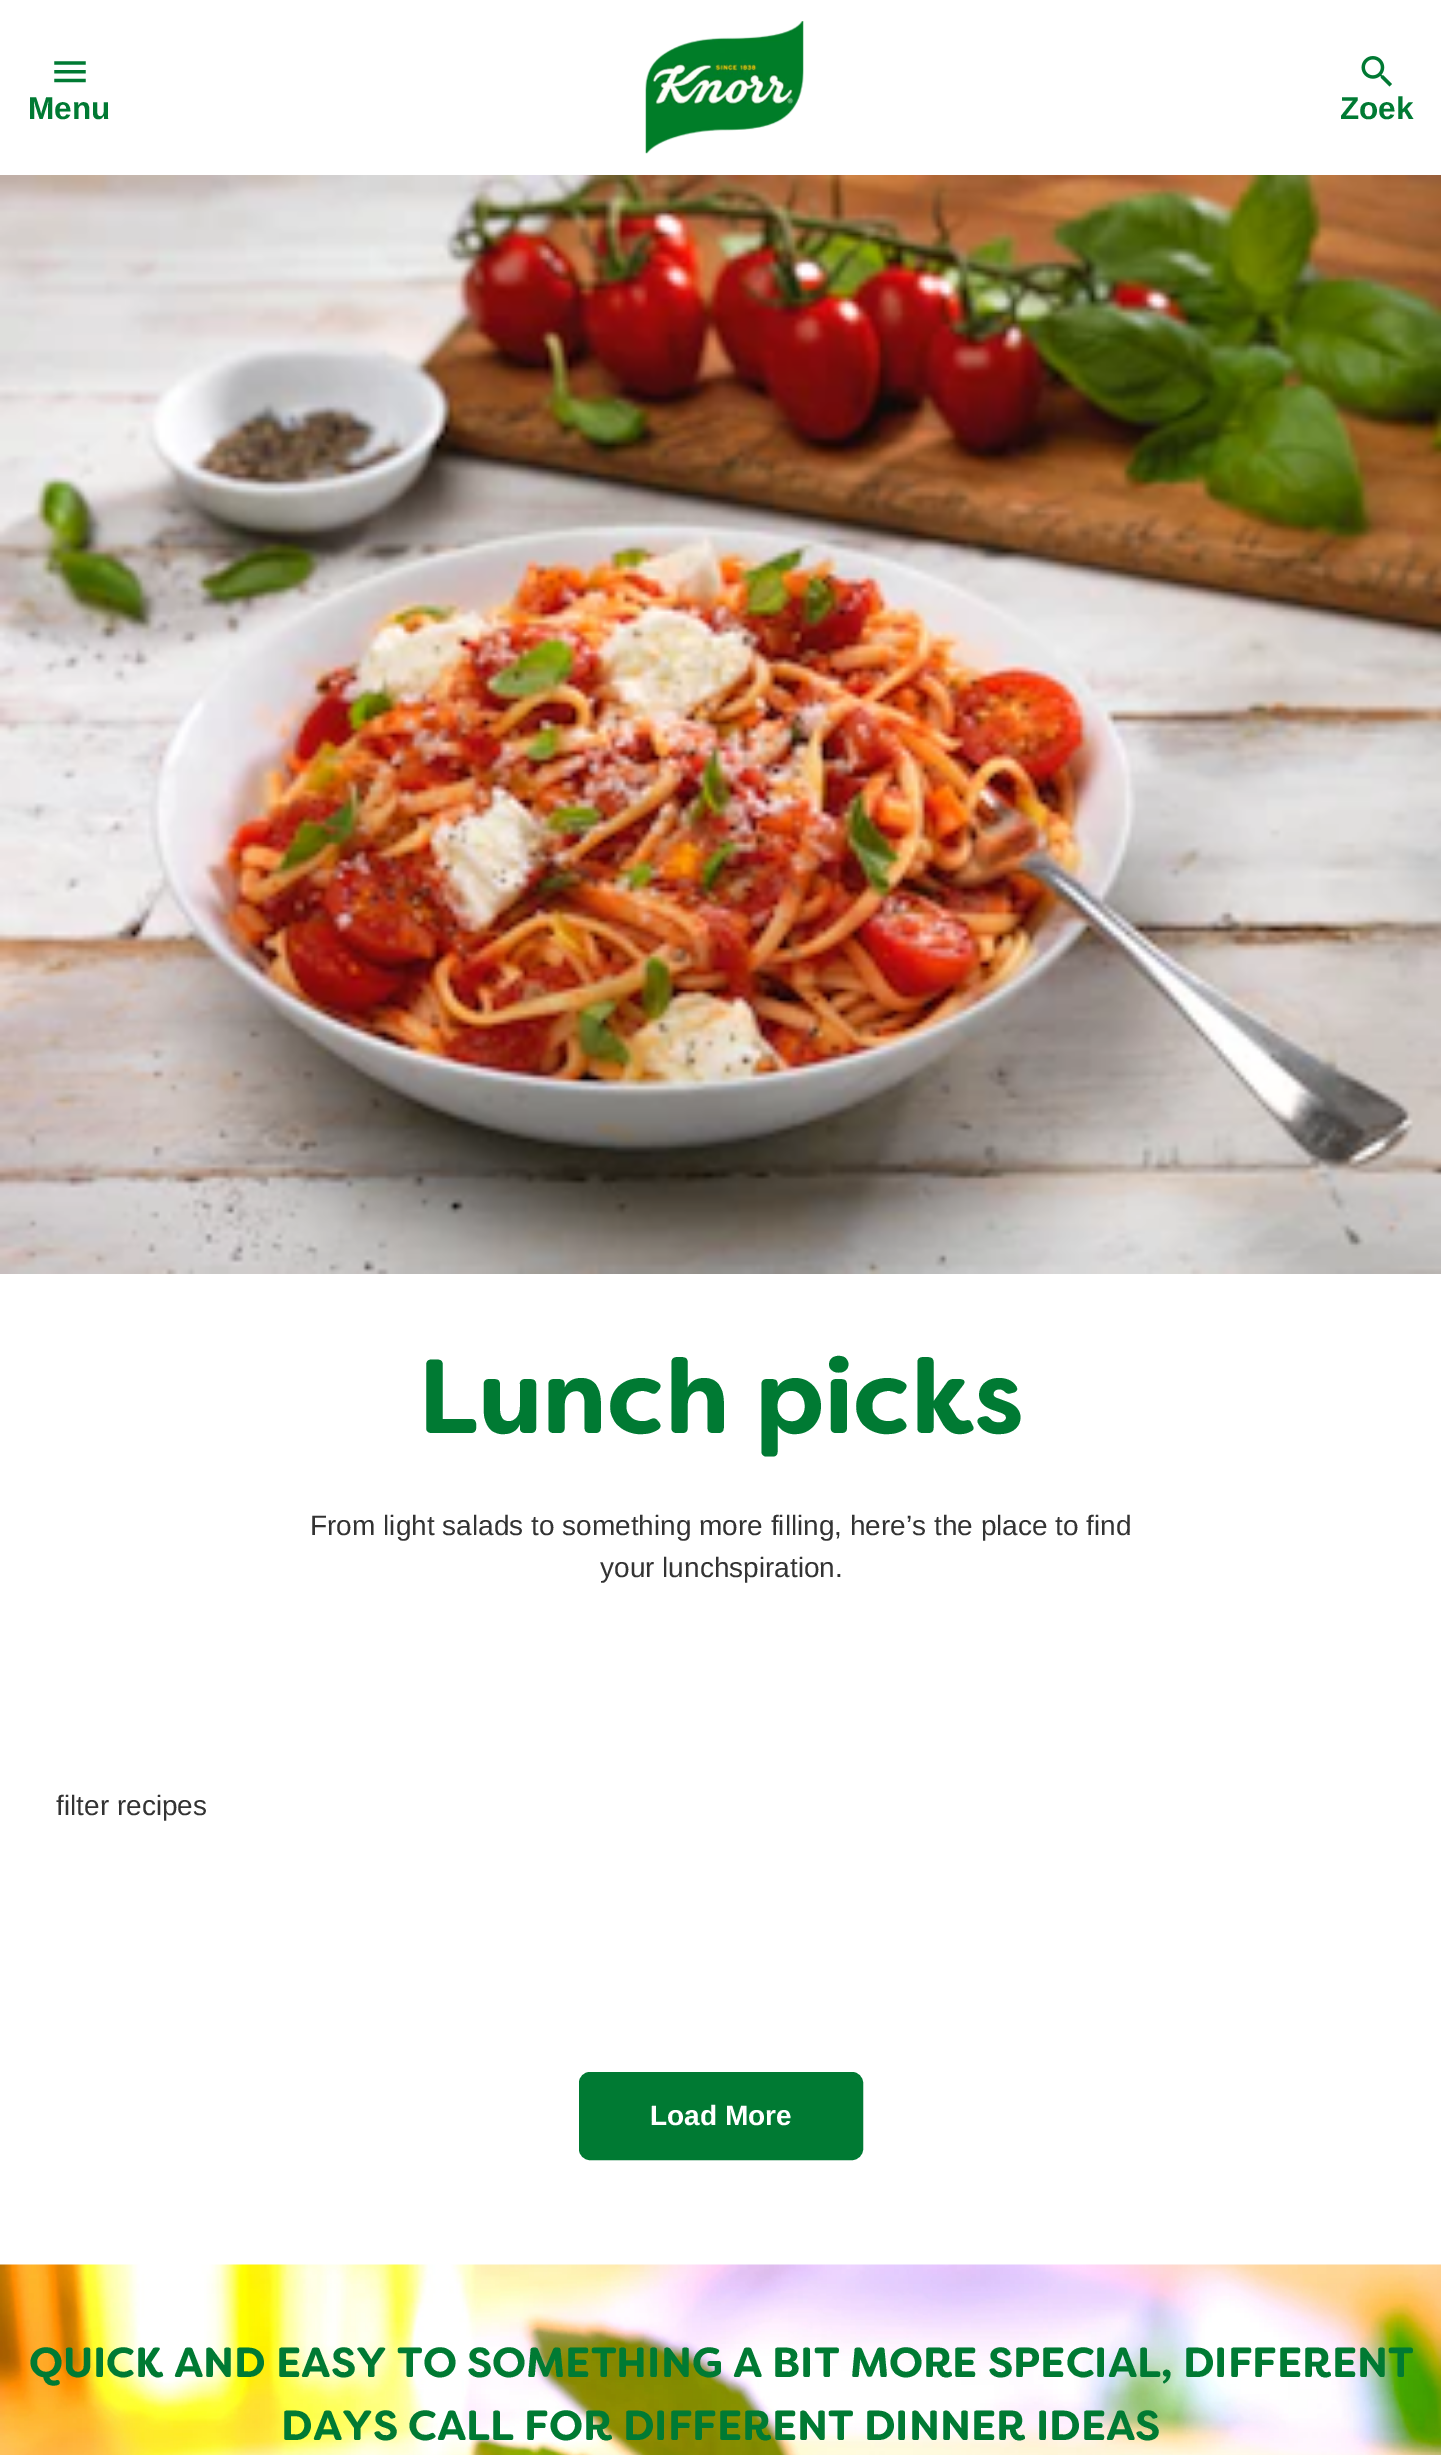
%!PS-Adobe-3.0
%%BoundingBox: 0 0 1441 2455
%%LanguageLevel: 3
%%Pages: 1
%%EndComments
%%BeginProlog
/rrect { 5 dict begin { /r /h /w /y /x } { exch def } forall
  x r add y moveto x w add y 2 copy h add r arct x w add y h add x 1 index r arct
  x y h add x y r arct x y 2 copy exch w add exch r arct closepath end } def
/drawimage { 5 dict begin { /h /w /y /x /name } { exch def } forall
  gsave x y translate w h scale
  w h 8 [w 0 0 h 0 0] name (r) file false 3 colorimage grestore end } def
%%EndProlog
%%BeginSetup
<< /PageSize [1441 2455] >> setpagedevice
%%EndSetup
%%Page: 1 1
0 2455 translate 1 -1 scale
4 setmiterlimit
1 setgray
0 0 1441 2455 rectfill
(images/1.raw) 54 61 32 22 drawimage
(images/2.raw) 645 21 159 133 drawimage
(images/3.raw) 1361 56 31 31 drawimage
(images/4.raw) 0 175 1441 1099 drawimage
0 0.478 0.2 setrgbcolor
580 2073 282 86 10 rrect gsave fill grestore
2 setlinewidth
stroke
(images/5.raw) 0 2264 1441 191 drawimage
/LiberationSans-Bold [31.5 0 0 -31.5 0 0] selectfont
28 119 moveto (Menu) show
1340 119 moveto (Zoek) show
/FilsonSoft-Bold [105 0 0 -105 0 0] selectfont
418 1433 moveto (Lunch picks) show
/LiberationSans-Regular [28 0 0 -28 0 0] selectfont
0.2 setgray
310 1535 moveto (From light salads to something more filling, here’s the place to find) show
600 1577 moveto (your lunchspiration.) show
56 1815 moveto (filter recipes) show
/LiberationSans-Bold [28 0 0 -28 0 0] selectfont
1 setgray
650 2125 moveto (Load More) show
/FilsonSoft-Bold [42 0 0 -42 0 0] selectfont
0 0.478 0.2 setrgbcolor
29 2377 moveto (QUICK AND EASY TO SOMETHING A BIT MORE SPECIAL, DIFFERENT) show
281 2440 moveto (DAYS CALL FOR DIFFERENT DINNER IDEAS) show
showpage
%%EOF
